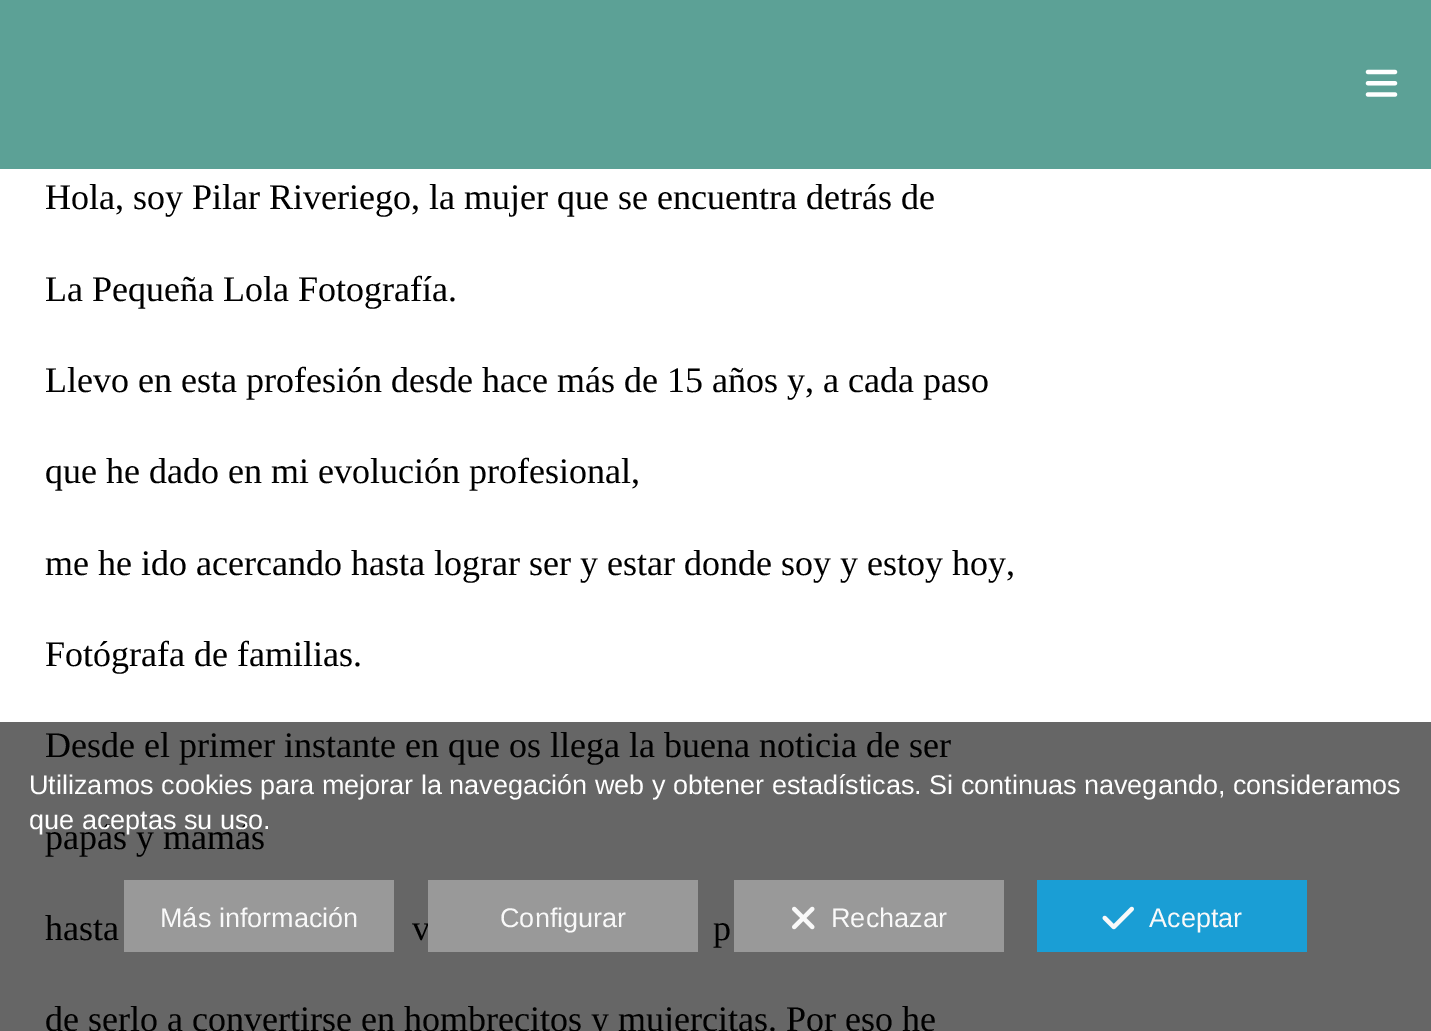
%!PS-Adobe-3.0
%%BoundingBox: 0 0 1431 1031
%%LanguageLevel: 3
%%Pages: 1
%%EndComments
%%BeginProlog
/drawimage { 5 dict begin { /h /w /y /x /name } { exch def } forall
  gsave x y translate w h scale
  w h 8 [w 0 0 h 0 0] name (r) file false 3 colorimage grestore end } def
%%EndProlog
%%BeginSetup
<< /PageSize [1431 1031] >> setpagedevice
%%EndSetup
%%Page: 1 1
0 1031 translate 1 -1 scale
4 setmiterlimit
1 setgray
0 0 1431 1031 rectfill
0.4 setgray
0 722 1431 309 rectfill
0.361 0.631 0.588 setrgbcolor
0 0 1431 169 rectfill
(images/1.raw) 1365 69 33 28 drawimage
0.6 setgray
124 880 270 72 rectfill
734 880 270 72 rectfill
(images/2.raw) 792 906 23 24 drawimage
0.102 0.62 0.835 setrgbcolor
1037 880 270 72 rectfill
(images/3.raw) 1102 906 32 24 drawimage
/LiberationSerif-Regular [36 0 0 -36 0 0] selectfont
0 setgray
45 209 moveto (Hola, soy Pilar Riveriego, la mujer que se encuentra detrás de) show
45 301 moveto (La Pequeña Lola Fotografía.) show
45 392 moveto (Llevo en esta profesión desde hace más de 15 años y, a cada paso) show
45 483 moveto (que he dado en mi evolución profesional,) show
45 575 moveto (me he ido acercando hasta lograr ser y estar donde soy y estoy hoy,) show
45 666 moveto (Fotógrafa de familias.) show
45 757 moveto (Desde el primer instante en que os llega la buena noticia de ser) show
45 849 moveto (papás y mamás) show
45 940 moveto (hasta) show
412 940 moveto (v) show
713 940 moveto (p) show
45 1031 moveto (de serlo a convertirse en hombrecitos y mujercitas. Por eso he) show
/LiberationSans-Regular [27 0 0 -27 0 0] selectfont
1 setgray
29 794 moveto (Utilizamos cookies para mejorar la navegación web y obtener estadísticas. Si continuas navegando, consideramos) show
29 829 moveto (que aceptas su uso.) show
0.976 setgray
160 927 moveto (Más información) show
0.6 setgray
428 880 270 72 rectfill
0.976 setgray
500 927 moveto (Configurar) show
831 927 moveto (Rechazar) show
1149 927 moveto (Aceptar) show
showpage
%%EOF
